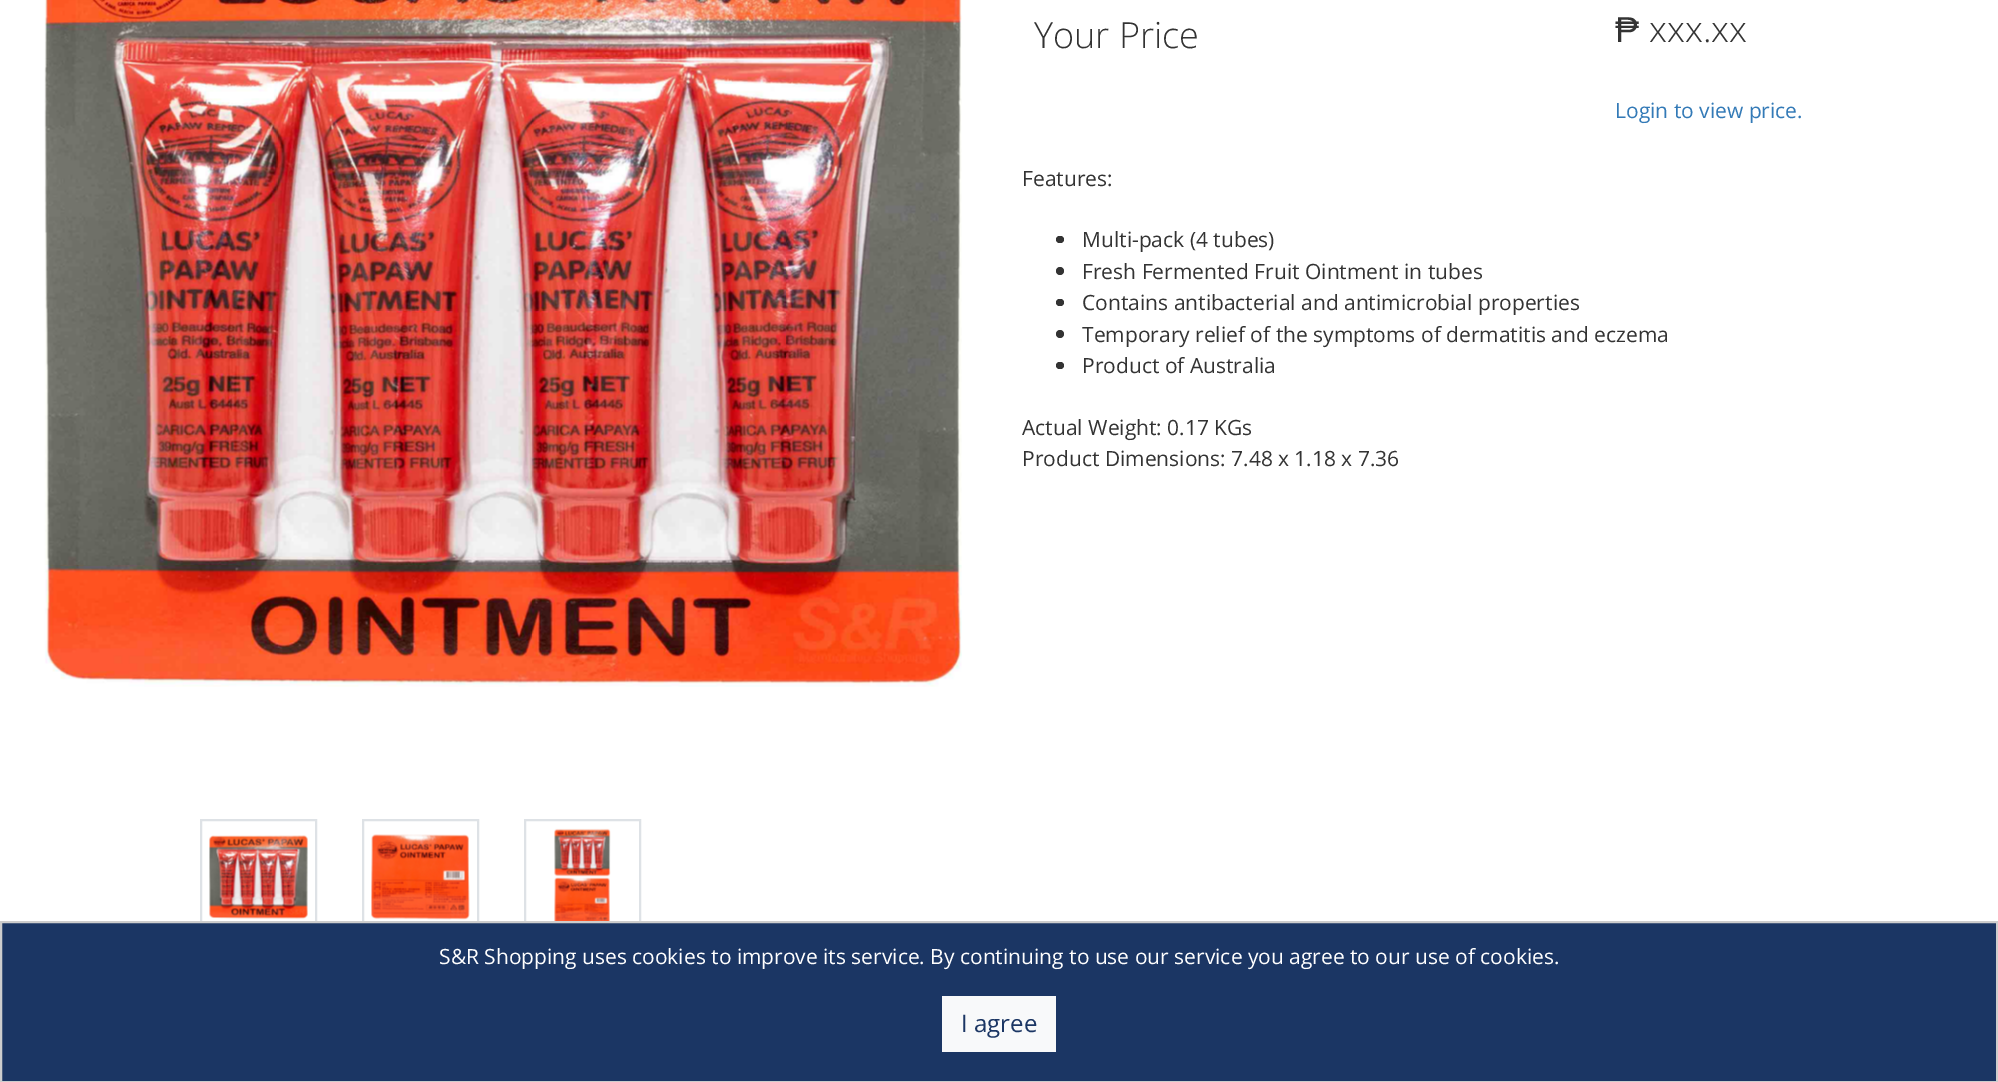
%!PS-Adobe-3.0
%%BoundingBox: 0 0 1998 1082
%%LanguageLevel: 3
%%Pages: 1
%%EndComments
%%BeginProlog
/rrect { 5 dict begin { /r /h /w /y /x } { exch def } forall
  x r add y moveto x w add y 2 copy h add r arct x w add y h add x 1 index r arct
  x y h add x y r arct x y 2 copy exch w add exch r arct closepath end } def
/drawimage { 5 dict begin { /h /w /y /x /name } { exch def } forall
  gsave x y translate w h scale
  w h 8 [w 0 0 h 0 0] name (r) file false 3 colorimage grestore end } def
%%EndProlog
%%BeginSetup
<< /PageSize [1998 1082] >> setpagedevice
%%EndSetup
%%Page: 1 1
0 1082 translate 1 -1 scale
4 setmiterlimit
1 setgray
0 0 1998 1082 rectfill
(images/1.raw) 44 0 918 687 drawimage
0.871 0.886 0.902 setrgbcolor
2 setlinewidth
201 820 115 115 rectstroke
(images/2.raw) 209 835 99 84 drawimage
363 820 115 115 rectstroke
(images/3.raw) 371 834 99 86 drawimage
525 820 115 115 rectstroke
(images/4.raw) 554 828 57 93 drawimage
0.2 setgray
1056 236 8 7 3.5 rrect fill
newpath 1060 271 4 0 360 arc closepath fill
1056 299 8 7 3.5 rrect fill
newpath 1060 334 4 0 360 arc closepath fill
1056 362 8 7 3.5 rrect fill
0.106 0.212 0.392 setrgbcolor
newpath 1 922 moveto 1997 922 lineto 1997 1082 lineto 1 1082 lineto closepath gsave fill grestore
0.804 setgray
stroke
0.973 0.976 0.98 setrgbcolor
942 996 114 56 rectfill
/OpenSans-Light [36 0 0 -36 0 0] selectfont
0.2 setgray
1034 48 moveto (Your Price) show
/LiberationSans-Regular [36 0 0 -36 0 0] selectfont
1615 42 moveto (₱) show
/OpenSans-Light [36 0 0 -36 0 0] selectfont
1649 42 moveto (xxx.xx) show
/OpenSans-Regular [21 0 0 -21 0 0] selectfont
0.2 0.478 0.718 setrgbcolor
1615 118 moveto (Login to view price.) show
0.2 setgray
1022 186 moveto (Features:) show
1082 247 moveto (Multi-pack \(4 tubes\)) show
1082 279 moveto (Fresh Fermented Fruit Ointment in tubes) show
1082 310 moveto (Contains antibacterial and antimicrobial properties) show
1082 342 moveto (Temporary relief of the symptoms of dermatitis and eczema) show
1082 373 moveto (Product of Australia) show
1022 435 moveto (Actual Weight: 0.17 KGs) show
1022 466 moveto (Product Dimensions: 7.48 x 1.18 x 7.36) show
1 setgray
439 964 moveto (S&R Shopping uses cookies to improve its service. By continuing to use our service you agree to our use of cookies.) show
/OpenSans-Regular [24 0 0 -24 0 0] selectfont
0.106 0.212 0.392 setrgbcolor
961 1032 moveto (I agree) show
showpage
%%EOF
